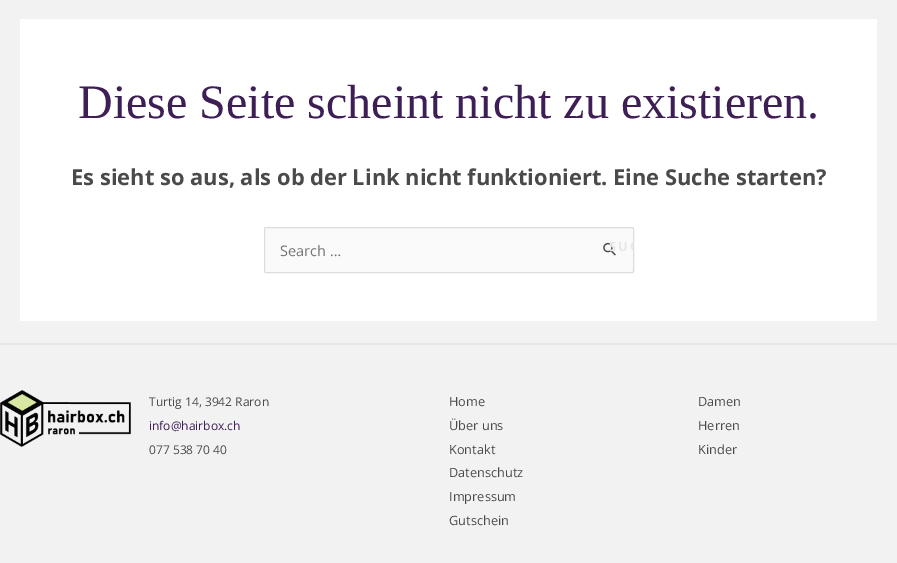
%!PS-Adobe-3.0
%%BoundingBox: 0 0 897 563
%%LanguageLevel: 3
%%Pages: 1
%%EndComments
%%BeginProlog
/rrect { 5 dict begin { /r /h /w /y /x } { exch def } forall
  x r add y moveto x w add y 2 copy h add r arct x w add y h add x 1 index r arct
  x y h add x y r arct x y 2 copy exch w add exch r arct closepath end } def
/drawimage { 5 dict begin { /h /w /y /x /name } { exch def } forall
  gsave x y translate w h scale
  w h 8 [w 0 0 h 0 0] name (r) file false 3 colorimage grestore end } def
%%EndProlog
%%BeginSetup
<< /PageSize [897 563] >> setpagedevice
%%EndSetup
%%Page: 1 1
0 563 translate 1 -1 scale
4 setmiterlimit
0.949 setgray
0 0 897 563 rectfill
1 setgray
20 19 857 302 rectfill
0.98 setgray
264.5 227.5 369 45 1.5 rrect gsave fill grestore
0.867 setgray
stroke
(images/1.raw) 603 242 13 14 drawimage
0.902 setgray
0 343 897 2 rectfill
(images/2.raw) 0 390 131 57 drawimage
/LiberationSerif-Regular [48 0 0 -48 0 0] selectfont
0.243 0.122 0.333 setrgbcolor
78 118 moveto (Diese Seite scheint nicht zu existieren.) show
/OpenSans-Bold [21.9 0 0 -21.9 0 0] selectfont
0.29 setgray
71 185 moveto (Es sieht so aus, als ob der Link nicht funktioniert. Eine Suche starten?) show
gsave
589 227 45 38 2 rrect clip newpath
/OpenSans-Bold [12.75 0 0 -12.75 0 0] selectfont
0.906 setgray
609 251 moveto 2 0 (SUC) ashow
grestore
/OpenSans-Regular [14.5 0 0 -14.5 0 0] selectfont
0.459 setgray
280 256 moveto (Search …) show
/OpenSans-Regular [12 0 0 -12 0 0] selectfont
0.29 setgray
149 406 moveto (Turtig 14, 3942 Raron) show
0.243 0.122 0.333 setrgbcolor
149 430 moveto (info@hairbox.ch) show
0.29 setgray
149 454 moveto (077 538 70 40) show
/OpenSans-Regular [12.75 0 0 -12.75 0 0] selectfont
449 406 moveto (Home) show
449 430 moveto (Über uns) show
449 454 moveto (Kontakt) show
449 477 moveto (Datenschutz) show
449 501 moveto (Impressum) show
449 525 moveto (Gutschein) show
698 406 moveto (Damen) show
698 430 moveto (Herren) show
698 454 moveto (Kinder) show
showpage
%%EOF
